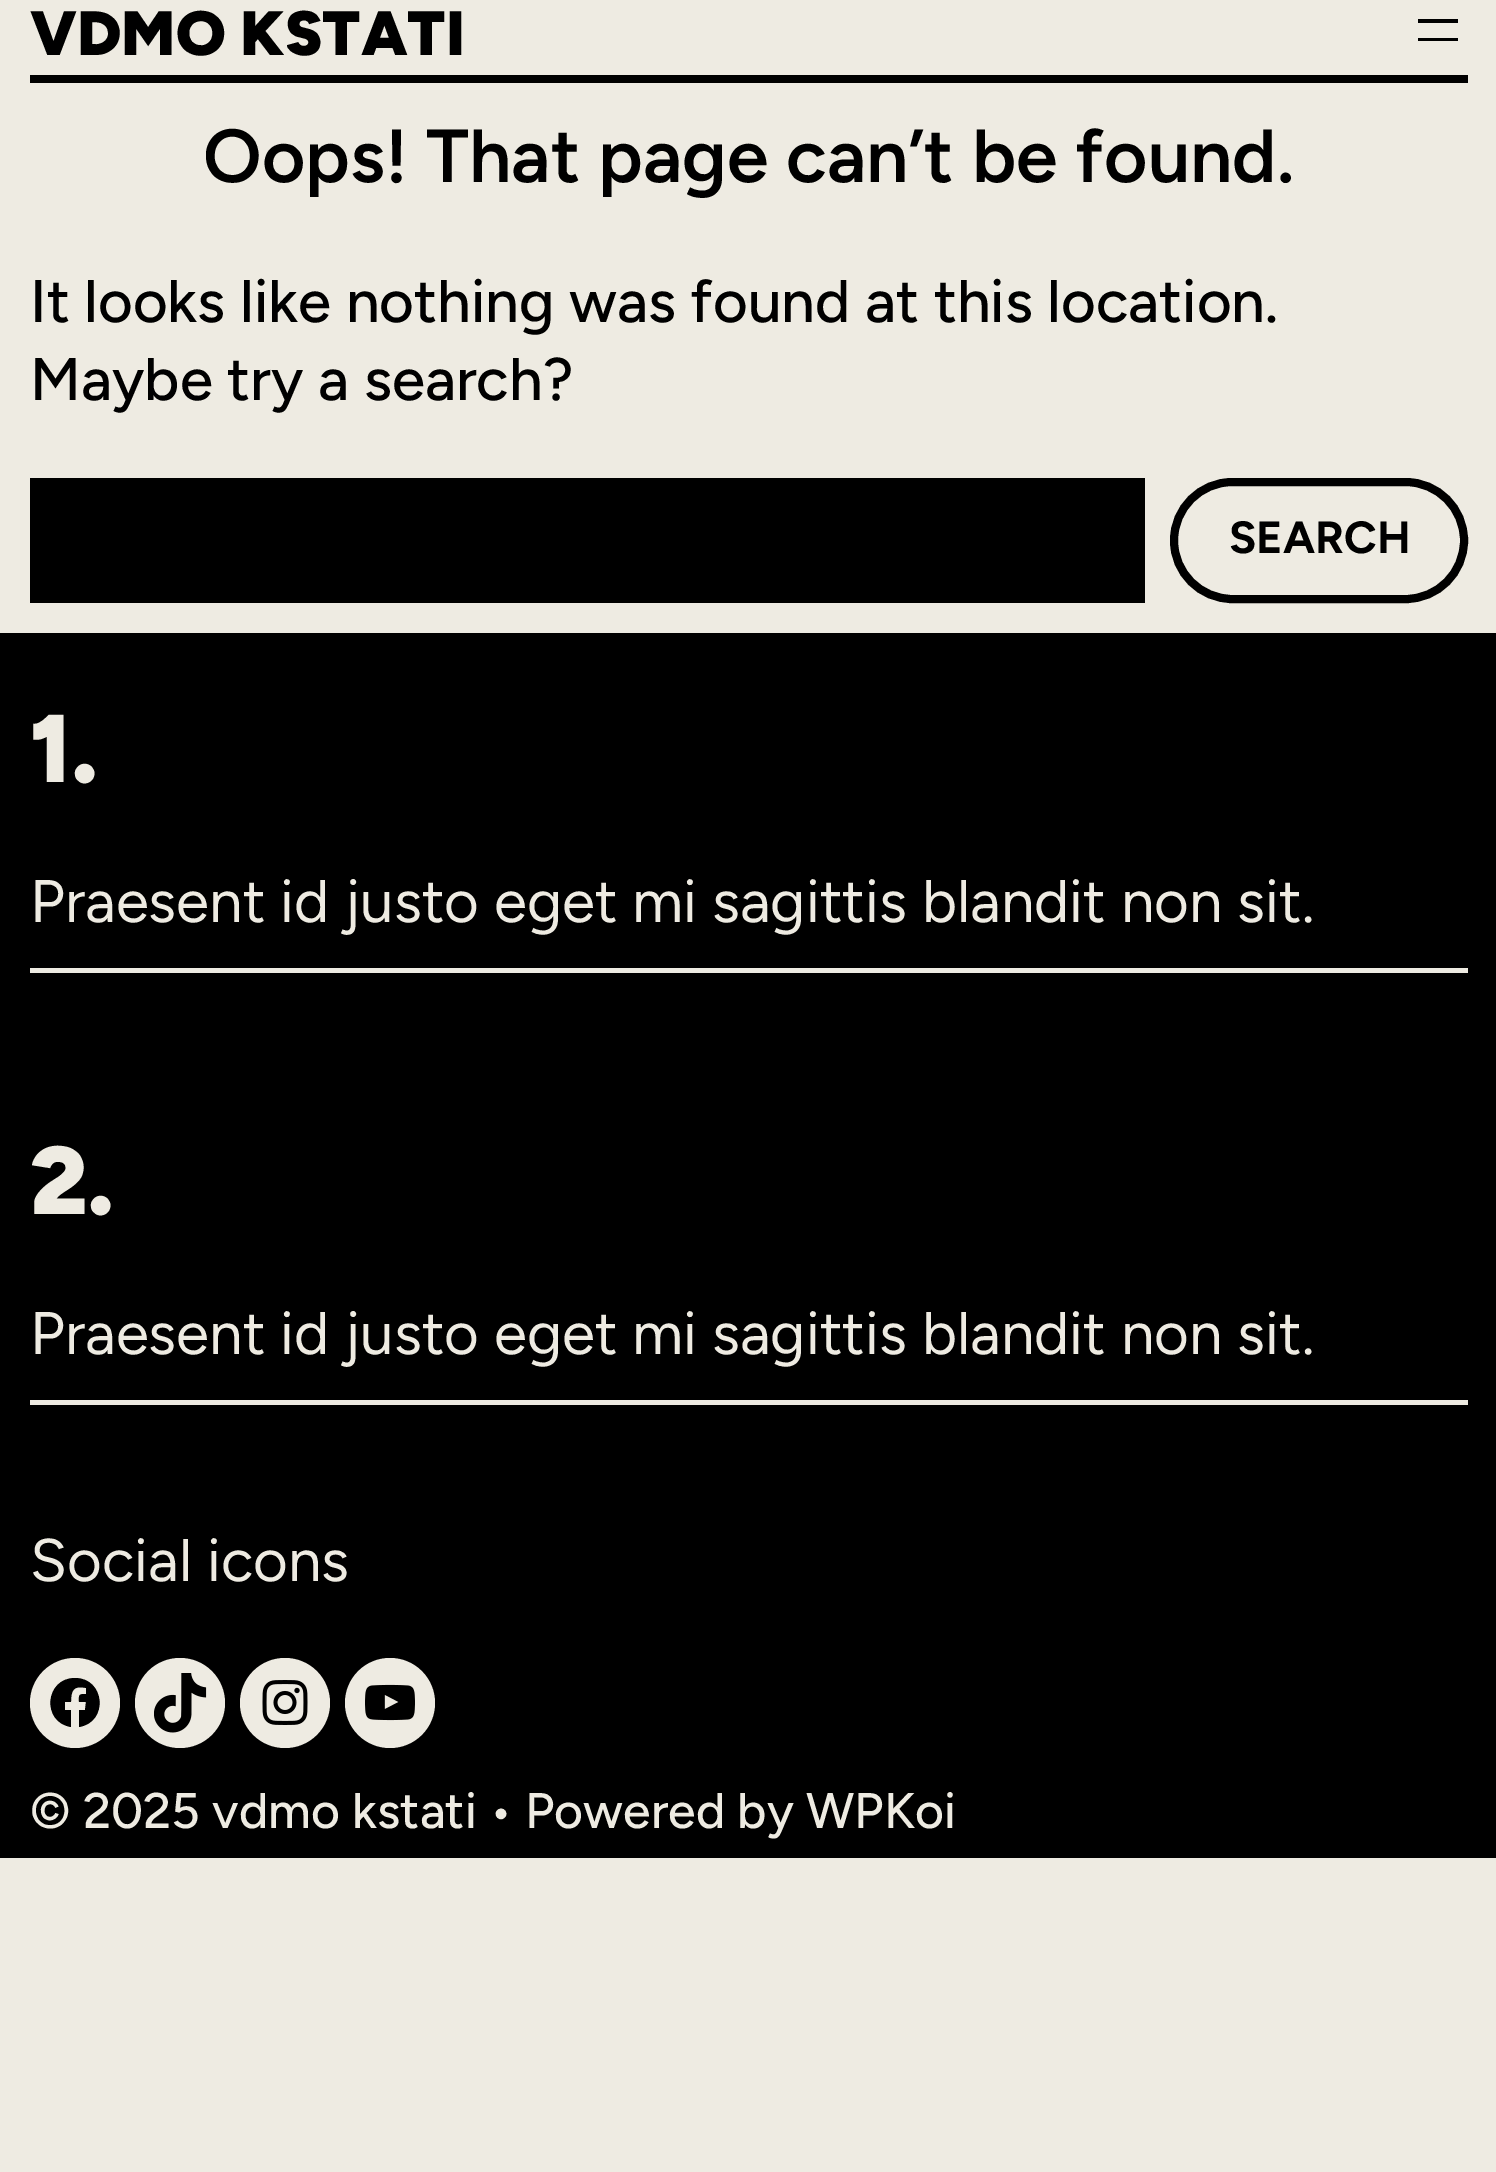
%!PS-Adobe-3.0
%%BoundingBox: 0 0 1496 2172
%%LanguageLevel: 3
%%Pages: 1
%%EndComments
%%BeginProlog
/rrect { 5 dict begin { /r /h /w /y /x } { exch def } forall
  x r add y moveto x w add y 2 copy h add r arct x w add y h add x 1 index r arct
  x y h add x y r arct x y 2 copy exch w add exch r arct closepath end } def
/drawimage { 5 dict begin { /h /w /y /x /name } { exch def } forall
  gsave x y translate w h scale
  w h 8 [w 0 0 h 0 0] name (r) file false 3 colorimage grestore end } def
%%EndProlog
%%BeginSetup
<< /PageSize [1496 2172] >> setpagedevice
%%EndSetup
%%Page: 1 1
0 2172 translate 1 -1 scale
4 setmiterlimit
0.933 0.922 0.886 setrgbcolor
0 0 1496 2172 rectfill
0 setgray
30 75 1438 8 rectfill
1418 19 40 4 rectfill
1418 38 40 3 rectfill
30 478 1115 125 rectfill
8 setlinewidth
1174 482 290 117 58.5 rrect stroke
0 633 1496 1225 rectfill
0.933 0.922 0.886 setrgbcolor
30 968 1438 5 rectfill
30 1400 1438 5 rectfill
newpath 75 1703 45 0 360 arc closepath fill
0 setgray
newpath 75 1678 moveto 45 1678 41 1722 71 1727 curveto 71 1710 lineto 65 1710 lineto 65 1702 lineto 71 1702 lineto 71 1691 73 1685 86 1688 curveto 86 1694 lineto 78 1694 79 1695 79 1702 curveto 86 1702 lineto 85 1710 lineto 79 1710 lineto 79 1727 lineto 109 1722 105 1678 75 1678 curveto closepath fill
0.933 0.922 0.886 setrgbcolor
newpath 180 1703 45 0 360 arc closepath fill
(images/1.raw) 154 1673 53 60 drawimage
newpath 285 1703 45 0 360 arc closepath fill
(images/2.raw) 262 1680 46 45 drawimage
newpath 390 1703 45 0 360 arc closepath fill
(images/3.raw) 365 1684 50 37 drawimage
/Figtree-Black [62.5 0 0 -62.5 0 0] selectfont
0 setgray
30 55 moveto (VDMO KSTATI) show
/Figtree-SemiBold [75 0 0 -75 0 0] selectfont
203 182 moveto (Oops! That page can’t be found.) show
/Figtree-Medium [60 0 0 -60 0 0] selectfont
30 322 moveto (It looks like nothing was found at this location.) show
30 400 moveto (Maybe try a search?) show
/Figtree-Bold [45 0 0 -45 0 0] selectfont
1229 553 moveto (SEARCH) show
/Figtree-Black [96 0 0 -96 0 0] selectfont
0.933 0.922 0.886 setrgbcolor
30 782 moveto (1.) show
/Figtree-Regular [60 0 0 -60 0 0] selectfont
30 922 moveto (Praesent id justo eget mi sagittis blandit non sit.) show
/Figtree-Black [96 0 0 -96 0 0] selectfont
30 1214 moveto (2.) show
/Figtree-Regular [60 0 0 -60 0 0] selectfont
30 1354 moveto (Praesent id justo eget mi sagittis blandit non sit.) show
30 1581 moveto (Social icons) show
/Figtree-Medium [50 0 0 -50 0 0] selectfont
30 1828 moveto (© 2025 vdmo kstati • Powered by WPKoi) show
showpage
%%EOF
